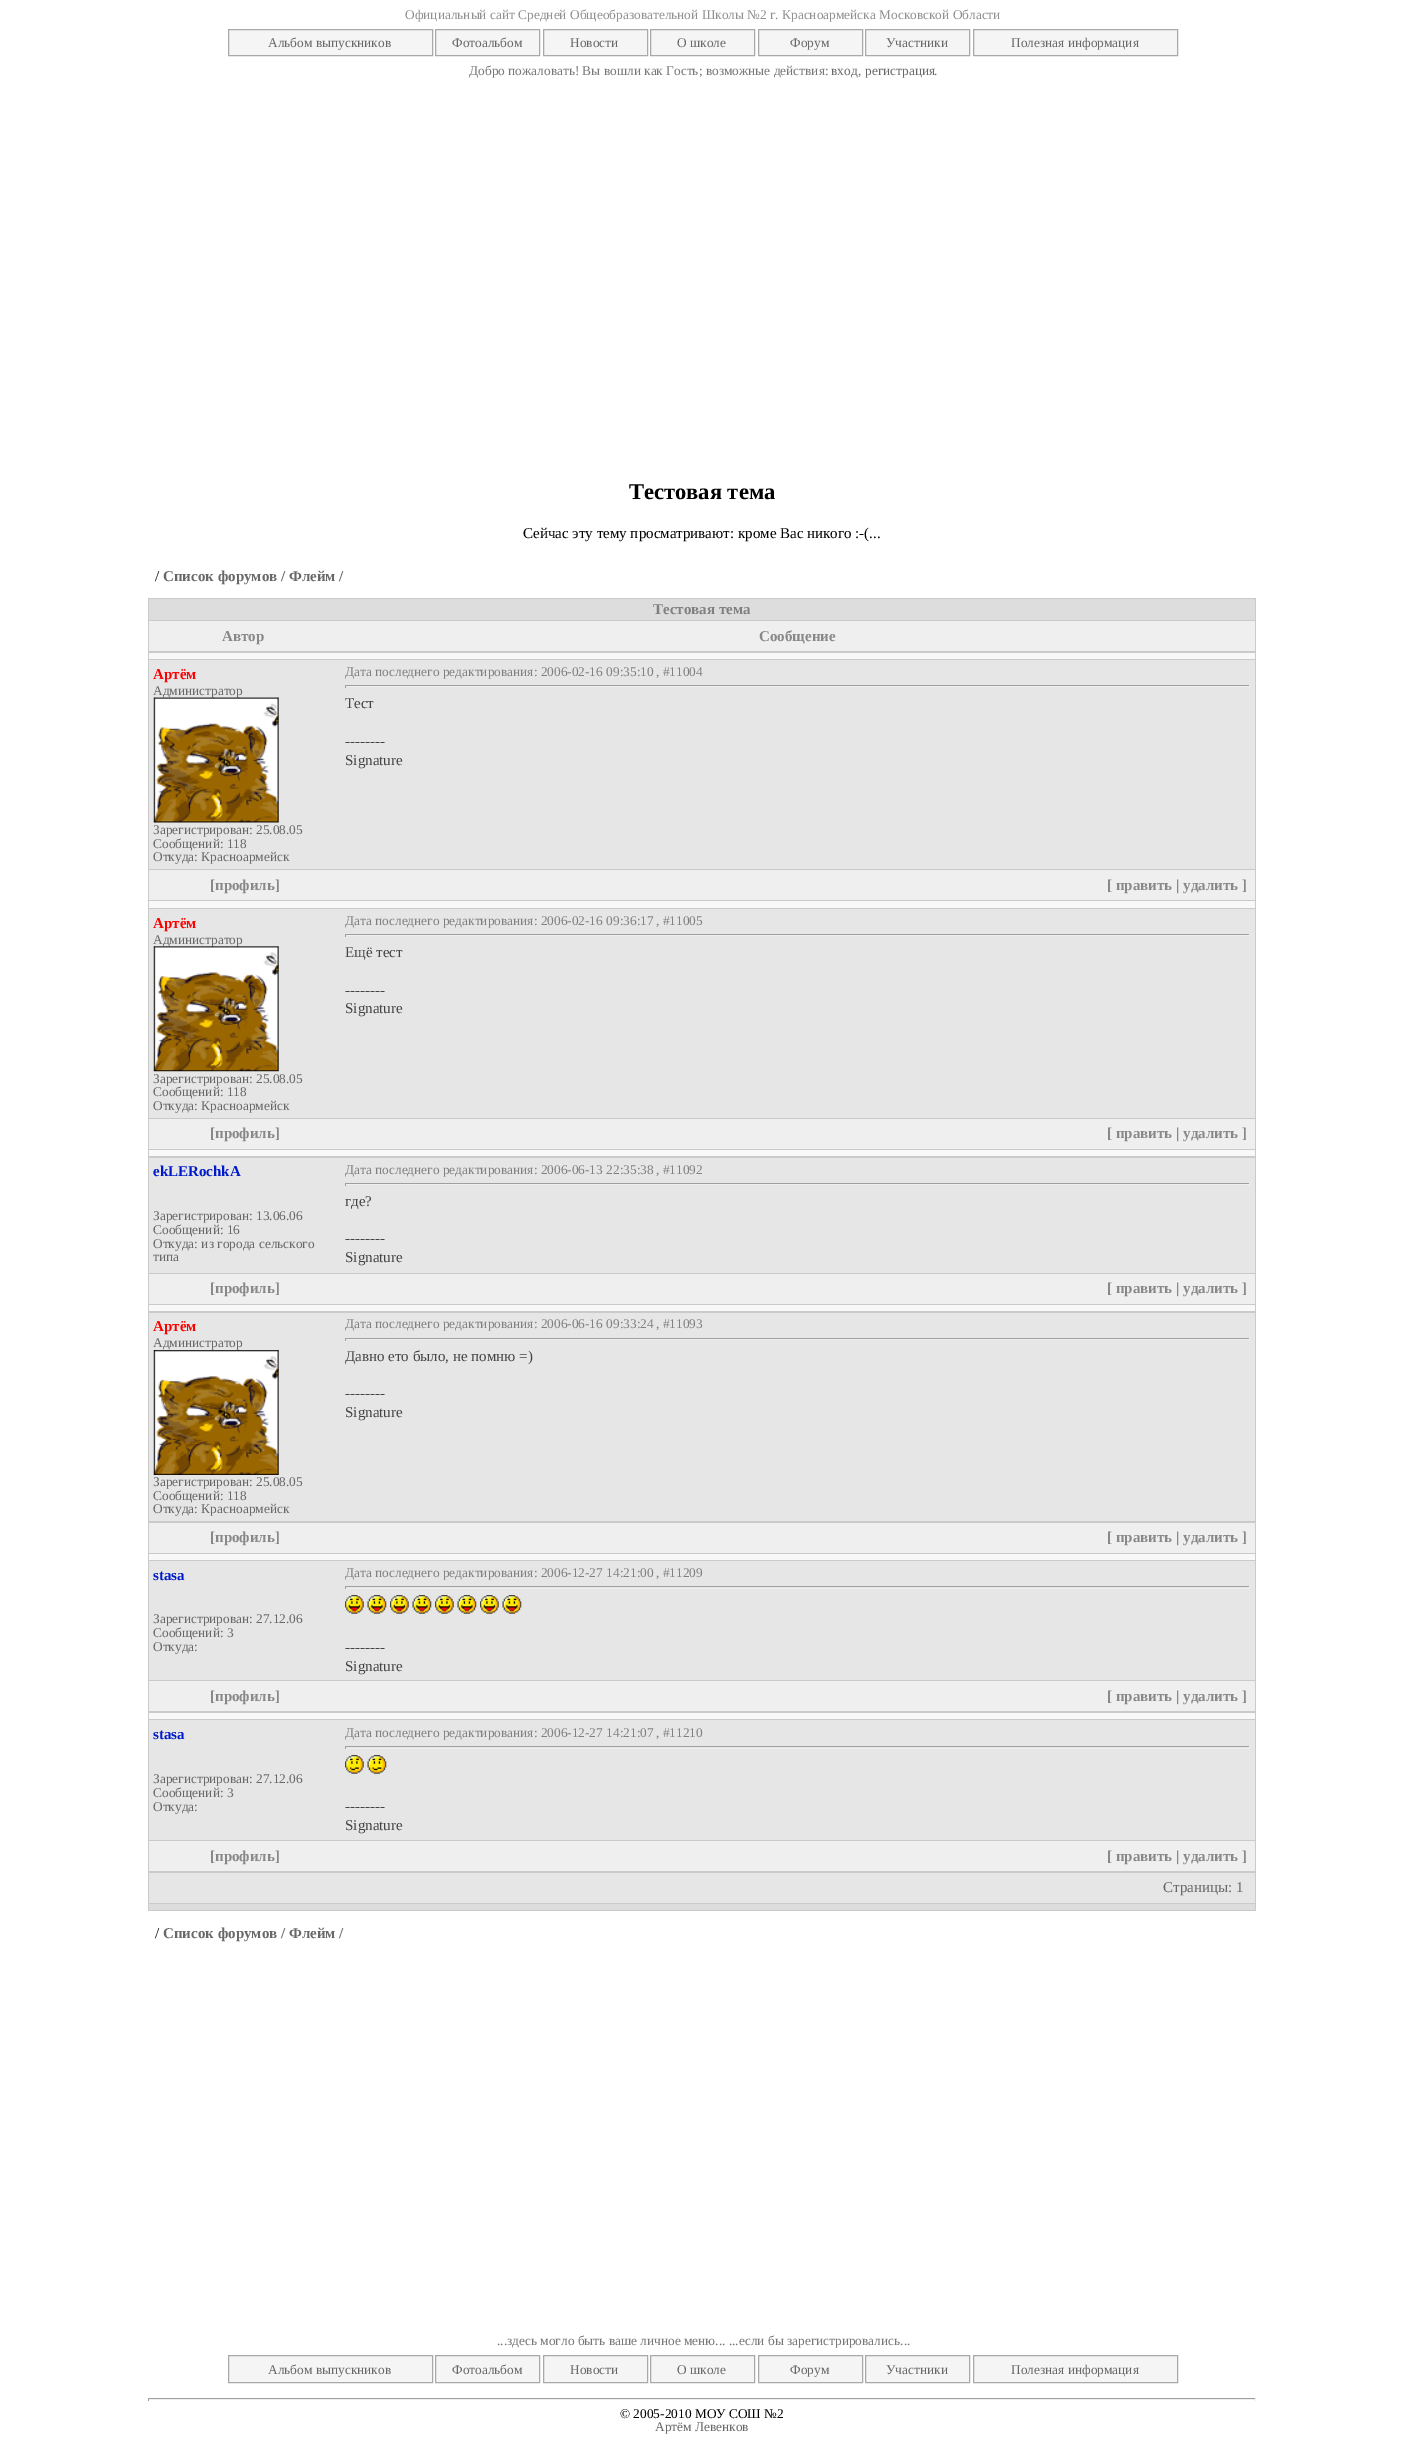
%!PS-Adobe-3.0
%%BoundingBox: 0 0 1403 2441
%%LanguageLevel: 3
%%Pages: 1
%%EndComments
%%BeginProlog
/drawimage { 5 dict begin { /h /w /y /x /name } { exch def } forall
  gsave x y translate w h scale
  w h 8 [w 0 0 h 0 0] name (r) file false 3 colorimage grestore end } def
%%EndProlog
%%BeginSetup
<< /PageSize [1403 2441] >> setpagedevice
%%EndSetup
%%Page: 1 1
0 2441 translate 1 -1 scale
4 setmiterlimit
1 setgray
0 0 1403 2441 rectfill
0.961 setgray
newpath 228.5 29.5 moveto 432.5 29.5 lineto 432.5 55.5 lineto 228.5 55.5 lineto closepath gsave fill grestore
0.663 setgray
stroke
0.961 setgray
newpath 435.5 29.5 moveto 539.5 29.5 lineto 539.5 55.5 lineto 435.5 55.5 lineto closepath gsave fill grestore
0.663 setgray
stroke
0.961 setgray
newpath 543.5 29.5 moveto 647.5 29.5 lineto 647.5 55.5 lineto 543.5 55.5 lineto closepath gsave fill grestore
0.663 setgray
stroke
0.961 setgray
newpath 650.5 29.5 moveto 754.5 29.5 lineto 754.5 55.5 lineto 650.5 55.5 lineto closepath gsave fill grestore
0.663 setgray
stroke
0.961 setgray
newpath 758.5 29.5 moveto 862.5 29.5 lineto 862.5 55.5 lineto 758.5 55.5 lineto closepath gsave fill grestore
0.663 setgray
stroke
0.961 setgray
newpath 865.5 29.5 moveto 969.5 29.5 lineto 969.5 55.5 lineto 865.5 55.5 lineto closepath gsave fill grestore
0.663 setgray
stroke
0.961 setgray
newpath 973.5 29.5 moveto 1177.5 29.5 lineto 1177.5 55.5 lineto 973.5 55.5 lineto closepath gsave fill grestore
0.663 setgray
stroke
0.792 setgray
148 598 1108 1313 rectfill
0.867 setgray
149 599 1106 21 rectfill
0.937 setgray
149 621 1106 30 rectfill
0.973 setgray
149 653 1106 6 rectfill
0.902 setgray
149 660 1106 209 rectfill
0.624 setgray
345 685 905 1 rectfill
0.933 setgray
1249 685 1 3 rectfill
345 686 905 1 rectfill
0.624 setgray
345 685 1 3 rectfill
0.937 setgray
149 870 1106 30 rectfill
0.973 setgray
149 901 1106 7 rectfill
0.902 setgray
149 909 1106 209 rectfill
0.624 setgray
345 934 905 1 rectfill
0.933 setgray
1249 934 1 3 rectfill
345 935 905 1 rectfill
0.624 setgray
345 934 1 3 rectfill
0.937 setgray
149 1119 1106 30 rectfill
0.973 setgray
149 1150 1106 6 rectfill
0.902 setgray
149 1158 1106 115 rectfill
0.624 setgray
345 1183 905 1 rectfill
0.933 setgray
1249 1183 1 3 rectfill
345 1184 905 1 rectfill
0.624 setgray
345 1183 1 3 rectfill
0.937 setgray
149 1274 1106 30 rectfill
0.973 setgray
149 1305 1106 6 rectfill
0.902 setgray
149 1313 1106 208 rectfill
(images/3.raw) 153 1350 126 125 drawimage
0.624 setgray
345 1338 905 1 rectfill
0.933 setgray
1249 1338 1 3 rectfill
345 1339 905 1 rectfill
0.624 setgray
345 1338 1 3 rectfill
0.937 setgray
149 1523 1106 30 rectfill
0.973 setgray
149 1554 1106 6 rectfill
0.902 setgray
149 1561 1106 119 rectfill
0.624 setgray
345 1586 905 1 rectfill
0.933 setgray
1249 1586 1 3 rectfill
345 1588 905 1 rectfill
0.624 setgray
345 1586 1 3 rectfill
(images/4.raw) 345 1595 19 19 drawimage
(images/5.raw) 367 1595 20 19 drawimage
(images/4.raw) 390 1595 19 19 drawimage
(images/5.raw) 412 1595 20 19 drawimage
(images/6.raw) 435 1595 19 19 drawimage
(images/7.raw) 457 1595 20 19 drawimage
(images/6.raw) 480 1595 19 19 drawimage
(images/7.raw) 502 1595 20 19 drawimage
0.937 setgray
149 1681 1106 30 rectfill
0.973 setgray
149 1713 1106 6 rectfill
0.902 setgray
149 1720 1106 120 rectfill
0.624 setgray
345 1746 905 1 rectfill
0.933 setgray
1249 1746 1 3 rectfill
345 1748 905 1 rectfill
0.624 setgray
345 1746 1 3 rectfill
(images/8.raw) 345 1755 19 19 drawimage
(images/9.raw) 367 1755 20 19 drawimage
0.937 setgray
149 1841 1106 30 rectfill
0.902 setgray
149 1873 1106 30 rectfill
0.867 setgray
149 1904 1106 6 rectfill
0.961 setgray
newpath 228.5 2355.5 moveto 432.5 2355.5 lineto 432.5 2382.5 lineto 228.5 2382.5 lineto closepath gsave fill grestore
0.663 setgray
stroke
0.961 setgray
newpath 435.5 2355.5 moveto 539.5 2355.5 lineto 539.5 2382.5 lineto 435.5 2382.5 lineto closepath gsave fill grestore
0.663 setgray
stroke
0.961 setgray
newpath 543.5 2355.5 moveto 647.5 2355.5 lineto 647.5 2382.5 lineto 543.5 2382.5 lineto closepath gsave fill grestore
0.663 setgray
stroke
0.961 setgray
newpath 650.5 2355.5 moveto 754.5 2355.5 lineto 754.5 2382.5 lineto 650.5 2382.5 lineto closepath gsave fill grestore
0.663 setgray
stroke
0.961 setgray
newpath 758.5 2355.5 moveto 862.5 2355.5 lineto 862.5 2382.5 lineto 758.5 2382.5 lineto closepath gsave fill grestore
0.663 setgray
stroke
0.961 setgray
newpath 865.5 2355.5 moveto 969.5 2355.5 lineto 969.5 2382.5 lineto 865.5 2382.5 lineto closepath gsave fill grestore
0.663 setgray
stroke
0.961 setgray
newpath 973.5 2355.5 moveto 1177.5 2355.5 lineto 1177.5 2382.5 lineto 973.5 2382.5 lineto closepath gsave fill grestore
0.663 setgray
stroke
0.624 setgray
148 2398 1108 1 rectfill
0.933 setgray
1255 2398 1 3 rectfill
148 2399 1108 1 rectfill
0.624 setgray
148 2398 1 3 rectfill
/LiberationSerif-Regular [13.35 0 0 -13.35 0 0] selectfont
0.565 setgray
405 19 moveto (Официальный сайт Средней Общеобразовательной Школы №2 г. Красноармейска Московской Области) show
0.408 setgray
268 47 moveto (Альбом выпускников) show
452 47 moveto (Фотоальбом) show
570 47 moveto (Новости) show
677 47 moveto (О школе) show
790 47 moveto (Форум) show
886 47 moveto (Участники) show
1011 47 moveto (Полезная информация) show
0.467 setgray
469 75 moveto (Добро пожаловать! Вы вошли как Гость; возможные действия:) show
0.408 setgray
831 75 moveto (вход) show
0.467 setgray
858 75 moveto (,) show
0.408 setgray
865 75 moveto (регистрация) show
0.467 setgray
934 75 moveto (.) show
/LiberationSerif-Bold [22.5 0 0 -22.5 0 0] selectfont
0 setgray
629 499 moveto (Тестовая тема) show
/LiberationSerif-Regular [15 0 0 -15 0 0] selectfont
523 538 moveto (Сейчас эту тему просматривают: кроме Вас никого :-\(...) show
155 581 moveto (/) show
/LiberationSerif-Bold [15 0 0 -15 0 0] selectfont
0.408 setgray
163 581 moveto (Список форумов / Флейм /) show
0.502 setgray
653 614 moveto (Тестовая тема) show
0.533 setgray
222 641 moveto (Автор) show
759 641 moveto (Сообщение) show
0.996 0 0 setrgbcolor
153 679 moveto (Артём) show
/LiberationSerif-Regular [13.35 0 0 -13.35 0 0] selectfont
0.408 setgray
153 695 moveto (Администратор) show
(images/1.raw) 153 697 126 126 drawimage
153 834 moveto (Зарегистрирован: 25.08.05) show
153 848 moveto (Сообщений: 118) show
153 861 moveto (Откуда: Красноармейск) show
0.502 setgray
345 676 moveto (Дата последнего редактирования: 2006-02-16 09:35:10) show
656 676 moveto (, #11004) show
/LiberationSerif-Regular [15 0 0 -15 0 0] selectfont
0.267 setgray
345 708 moveto (Тест) show
345 746 moveto (--------) show
345 765 moveto (Signature) show
/LiberationSerif-Bold [15 0 0 -15 0 0] selectfont
0.533 setgray
210 890 moveto ([профиль]) show
1107 890 moveto ([ править | удалить ]) show
0.996 0 0 setrgbcolor
153 928 moveto (Артём) show
/LiberationSerif-Regular [13.35 0 0 -13.35 0 0] selectfont
0.408 setgray
153 944 moveto (Администратор) show
(images/2.raw) 153 946 126 126 drawimage
153 1083 moveto (Зарегистрирован: 25.08.05) show
153 1096 moveto (Сообщений: 118) show
153 1110 moveto (Откуда: Красноармейск) show
0.502 setgray
345 925 moveto (Дата последнего редактирования: 2006-02-16 09:36:17) show
656 925 moveto (, #11005) show
/LiberationSerif-Regular [15 0 0 -15 0 0] selectfont
0.267 setgray
345 957 moveto (Ещё тест) show
345 995 moveto (--------) show
345 1013 moveto (Signature) show
/LiberationSerif-Bold [15 0 0 -15 0 0] selectfont
0.533 setgray
210 1138 moveto ([профиль]) show
1107 1138 moveto ([ править | удалить ]) show
0 0.098 0.796 setrgbcolor
153 1176 moveto (ekLERochkA) show
/LiberationSerif-Regular [13.35 0 0 -13.35 0 0] selectfont
0.408 setgray
153 1220 moveto (Зарегистрирован: 13.06.06) show
153 1234 moveto (Сообщений: 16) show
153 1248 moveto (Откуда: из города сельского) show
153 1261 moveto (типа) show
0.502 setgray
345 1174 moveto (Дата последнего редактирования: 2006-06-13 22:35:38) show
656 1174 moveto (, #11092) show
/LiberationSerif-Regular [15 0 0 -15 0 0] selectfont
0.267 setgray
345 1206 moveto (где?) show
345 1243 moveto (--------) show
345 1262 moveto (Signature) show
/LiberationSerif-Bold [15 0 0 -15 0 0] selectfont
0.533 setgray
210 1293 moveto ([профиль]) show
1107 1293 moveto ([ править | удалить ]) show
0.996 0 0 setrgbcolor
153 1331 moveto (Артём) show
/LiberationSerif-Regular [13.35 0 0 -13.35 0 0] selectfont
0.408 setgray
153 1347 moveto (Администратор) show
153 1486 moveto (Зарегистрирован: 25.08.05) show
153 1500 moveto (Сообщений: 118) show
153 1513 moveto (Откуда: Красноармейск) show
0.502 setgray
345 1328 moveto (Дата последнего редактирования: 2006-06-16 09:33:24) show
656 1328 moveto (, #11093) show
/LiberationSerif-Regular [15 0 0 -15 0 0] selectfont
0.267 setgray
345 1361 moveto (Давно ето было, не помню =\)) show
345 1398 moveto (--------) show
345 1417 moveto (Signature) show
/LiberationSerif-Bold [15 0 0 -15 0 0] selectfont
0.533 setgray
210 1542 moveto ([профиль]) show
1107 1542 moveto ([ править | удалить ]) show
0 0.098 0.796 setrgbcolor
153 1580 moveto (stasa) show
/LiberationSerif-Regular [13.35 0 0 -13.35 0 0] selectfont
0.408 setgray
153 1623 moveto (Зарегистрирован: 27.12.06) show
153 1637 moveto (Сообщений: 3) show
153 1651 moveto (Откуда:) show
0.502 setgray
345 1577 moveto (Дата последнего редактирования: 2006-12-27 14:21:00) show
656 1577 moveto (, #11209) show
/LiberationSerif-Regular [15 0 0 -15 0 0] selectfont
0.267 setgray
345 1652 moveto (--------) show
345 1671 moveto (Signature) show
/LiberationSerif-Bold [15 0 0 -15 0 0] selectfont
0.533 setgray
210 1701 moveto ([профиль]) show
1107 1701 moveto ([ править | удалить ]) show
0 0.098 0.796 setrgbcolor
153 1739 moveto (stasa) show
/LiberationSerif-Regular [13.35 0 0 -13.35 0 0] selectfont
0.408 setgray
153 1783 moveto (Зарегистрирован: 27.12.06) show
153 1797 moveto (Сообщений: 3) show
153 1811 moveto (Откуда:) show
0.502 setgray
345 1737 moveto (Дата последнего редактирования: 2006-12-27 14:21:07) show
656 1737 moveto (, #11210) show
/LiberationSerif-Regular [15 0 0 -15 0 0] selectfont
0.267 setgray
345 1811 moveto (--------) show
345 1830 moveto (Signature) show
/LiberationSerif-Bold [15 0 0 -15 0 0] selectfont
0.533 setgray
210 1861 moveto ([профиль]) show
1107 1861 moveto ([ править | удалить ]) show
/LiberationSerif-Regular [15 0 0 -15 0 0] selectfont
0.408 setgray
1163 1892 moveto (Страницы: 1) show
0 setgray
155 1938 moveto (/) show
/LiberationSerif-Bold [15 0 0 -15 0 0] selectfont
0.408 setgray
163 1938 moveto (Список форумов / Флейм /) show
/LiberationSerif-Regular [13.35 0 0 -13.35 0 0] selectfont
0.467 setgray
497 2345 moveto (...здесь могло быть ваше личное меню... ...если бы зарегистрировались...) show
0.408 setgray
268 2374 moveto (Альбом выпускников) show
452 2374 moveto (Фотоальбом) show
570 2374 moveto (Новости) show
677 2374 moveto (О школе) show
790 2374 moveto (Форум) show
886 2374 moveto (Участники) show
1011 2374 moveto (Полезная информация) show
0 setgray
620 2418 moveto (© 2005-2010 МОУ СОШ №2) show
0.408 setgray
655 2431 moveto (Артём Левенков) show
showpage
%%EOF
